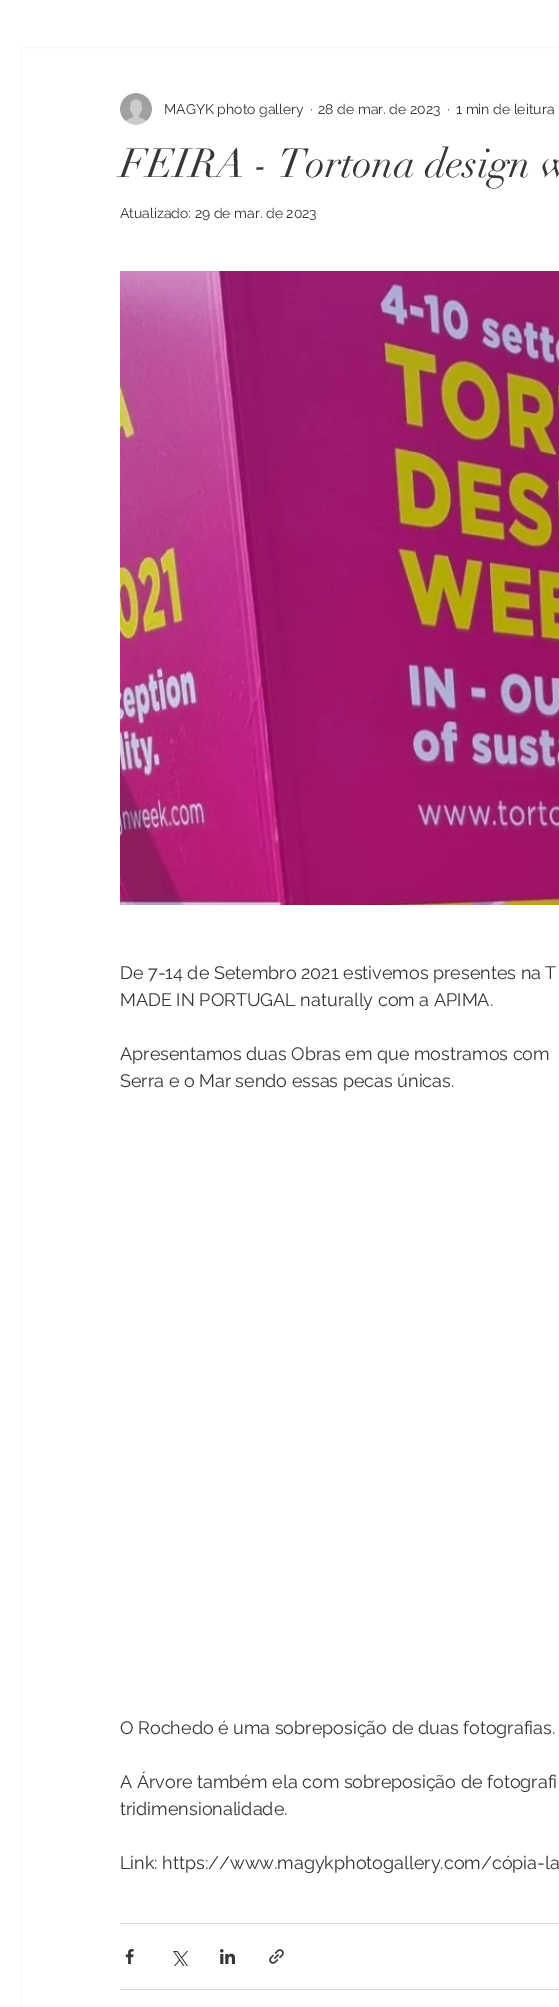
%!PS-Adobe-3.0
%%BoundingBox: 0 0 559 2007
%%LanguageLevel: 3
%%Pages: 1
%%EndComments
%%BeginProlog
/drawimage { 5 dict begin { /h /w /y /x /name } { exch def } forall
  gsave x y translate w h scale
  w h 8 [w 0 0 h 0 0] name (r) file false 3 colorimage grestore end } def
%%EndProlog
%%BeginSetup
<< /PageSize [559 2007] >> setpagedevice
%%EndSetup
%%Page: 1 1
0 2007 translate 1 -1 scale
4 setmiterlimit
1 setgray
0 0 559 2007 rectfill
0.976 0.973 0.973 setrgbcolor
20.5 47.5 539 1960 rectstroke
(images/1.raw) 120 93 32 32 drawimage
(images/2.raw) 120 271 439 634 drawimage
0.843 setgray
120 1923 439 1 rectfill
(images/3.raw) 125 1949 9 15 drawimage
(images/4.raw) 173 1951 15 15 drawimage
(images/5.raw) 220 1949 15 15 drawimage
(images/6.raw) 269 1949 15 15 drawimage
120 1989 439 1 rectfill
/Raleway-Regular [14 0 0 -14 0 0] selectfont
0.212 setgray
164 114 moveto (MAGYK photo gallery) show
310 114 moveto (·) show
318 114 moveto (28 de mar. de 2023) show
447 114 moveto (·) show
456 114 moveto (1 min de leitura) show
/didot-Regular [40 0 0 -40 0 0] selectfont
120 177 moveto (FEIRA - Tortona design w) show
/Raleway-Regular [14 0 0 -14 0 0] selectfont
120 218 moveto (Atualizado: 29 de mar. de 2023) show
/Raleway-Regular [18 0 0 -18 0 0] selectfont
120 979 moveto (De 7-14 de Setembro 2021 estivemos presentes na T) show
120 1006 moveto (MADE IN PORTUGAL naturally com a APIMA.) show
120 1060 moveto (Apresentamos duas Obras em que mostramos com) show
120 1087 moveto (Serra e o Mar sendo essas pecas únicas.) show
120 1734 moveto (O Rochedo é uma sobreposição de duas fotografias.) show
120 1788 moveto (A Árvore também ela com sobreposição de fotografi) show
120 1815 moveto (tridimensionalidade.) show
120 1869 moveto (Link: https://www.magykphotogallery.com/cópia-la) show
showpage
%%EOF
